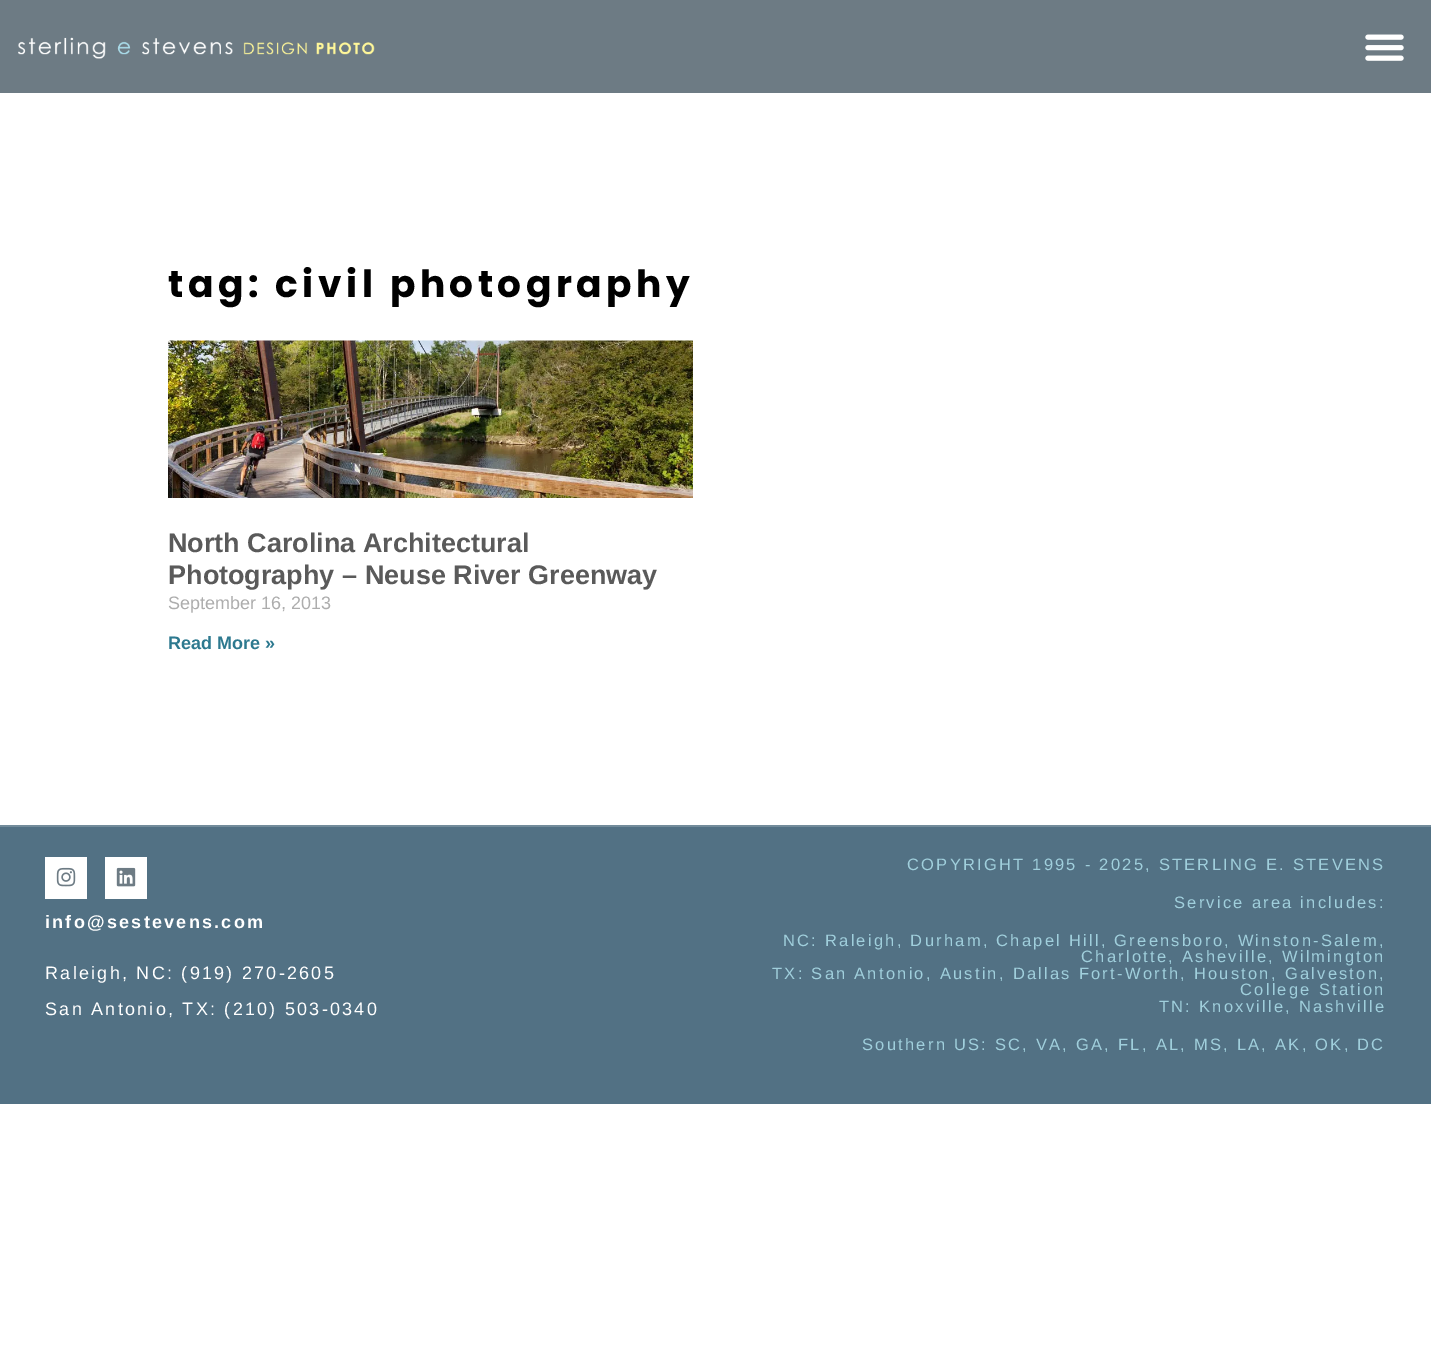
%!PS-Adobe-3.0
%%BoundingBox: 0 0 1431 1348
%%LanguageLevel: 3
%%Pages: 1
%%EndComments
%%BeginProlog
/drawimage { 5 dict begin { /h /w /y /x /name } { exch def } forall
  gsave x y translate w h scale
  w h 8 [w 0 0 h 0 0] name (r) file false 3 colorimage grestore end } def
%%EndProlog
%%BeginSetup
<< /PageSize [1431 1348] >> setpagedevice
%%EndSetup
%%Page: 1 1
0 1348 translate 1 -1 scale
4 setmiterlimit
1 setgray
0 0 1431 1348 rectfill
0.427 0.482 0.518 setrgbcolor
0 0 1431 93 rectfill
(images/1.raw) 18 37 357 22 drawimage
(images/2.raw) 1365 34 39 27 drawimage
(images/3.raw) 168 340 525 158 drawimage
0.322 0.443 0.518 setrgbcolor
0 827 1431 277 rectfill
0.451 0.549 0.608 setrgbcolor
0 825 1431 2 rectfill
1 setgray
45 857 42 42 rectfill
(images/4.raw) 56 867 20 20 drawimage
105 857 42 42 rectfill
(images/5.raw) 116 867 20 20 drawimage
/Poppins-Bold [37.5 0 0 -37.5 0 0] selectfont
0 setgray
168 297 moveto 4.5 0 (tag: civil photography) ashow
/LiberationSans-Bold [27 0 0 -27 0 0] selectfont
0.353 setgray
168 552 moveto (North Carolina Architectural) show
168 584 moveto (Photography – Neuse River Greenway) show
/LiberationSans-Regular [18 0 0 -18 0 0] selectfont
0.678 setgray
168 609 moveto (September 16, 2013) show
/LiberationSans-Bold [18 0 0 -18 0 0] selectfont
0.176 0.475 0.561 setrgbcolor
168 649 moveto (Read More ») show
1 setgray
45 928 moveto 2.25 0 (info@sestevens.com) ashow
/LiberationSans-Regular [18 0 0 -18 0 0] selectfont
45 979 moveto 2.25 0 (Raleigh, NC: \(919\) 270-2605) ashow
45 1015 moveto 2.25 0 (San Antonio, TX: \(210\) 503-0340) ashow
/LiberationSans-Regular [16.5 0 0 -16.5 0 0] selectfont
0.627 0.812 0.863 setrgbcolor
907 870 moveto 2.25 0 (COPYRIGHT 1995 - 2025, STERLING E. STEVENS) ashow
1174 908 moveto 2.25 0 (Service area includes:) ashow
783 946 moveto 2.25 0 (NC: Raleigh, Durham, Chapel Hill, Greensboro, Winston-Salem,) ashow
1081 962 moveto 2.25 0 (Charlotte, Asheville, Wilmington) ashow
772 979 moveto 2.25 0 (TX: San Antonio, Austin, Dallas Fort-Worth, Houston, Galveston,) ashow
1240 995 moveto 2.25 0 (College Station) ashow
1159 1012 moveto 2.25 0 (TN: Knoxville, Nashville) ashow
862 1050 moveto 2.25 0 (Southern US: SC, VA, GA, FL, AL, MS, LA, AK, OK, DC) ashow
showpage
%%EOF
